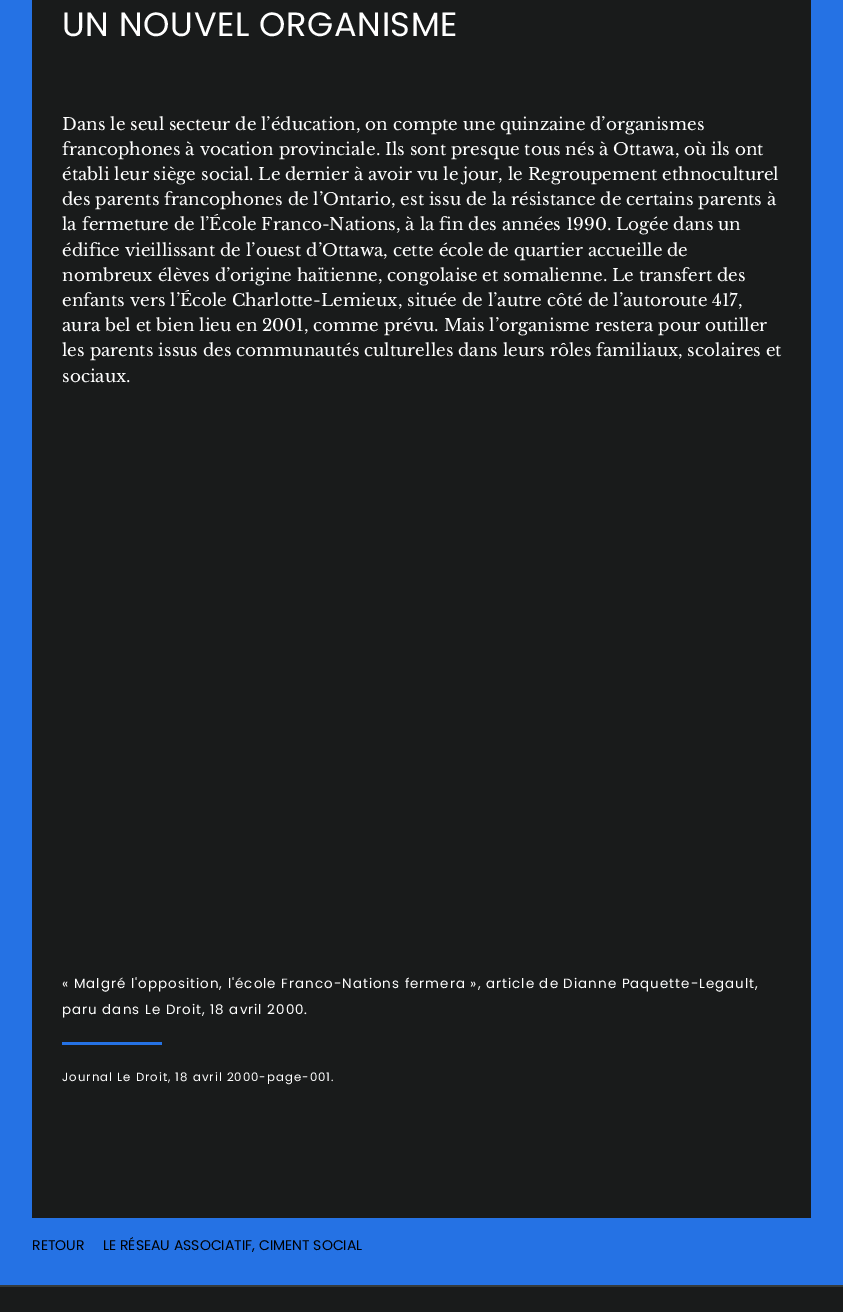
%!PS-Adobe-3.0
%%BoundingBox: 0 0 843 1312
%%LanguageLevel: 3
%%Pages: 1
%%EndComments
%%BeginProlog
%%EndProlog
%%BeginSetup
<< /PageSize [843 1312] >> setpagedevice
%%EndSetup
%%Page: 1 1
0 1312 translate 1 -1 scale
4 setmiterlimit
0.145 0.447 0.894 setrgbcolor
0 0 843 1312 rectfill
0.098 0.106 0.106 setrgbcolor
32 0 779 1218 rectfill
0.145 0.447 0.894 setrgbcolor
62 1042 100 3 rectfill
0.098 0.106 0.106 setrgbcolor
0 1287 843 25 rectfill
0.208 0.231 0.231 setrgbcolor
0 1285 843 2 rectfill
/Poppins-Regular [33.6 0 0 -33.6 0 0] selectfont
1 setgray
62 36 moveto 0.6 0 (UN NOUVEL ORGANISME) ashow
/LibreBaskerville-Regular [16.8 0 0 -16.8 0 0] selectfont
62 130 moveto (Dans le seul secteur de l’éducation, on compte une quinzaine d’organismes) show
62 155 moveto (francophones à vocation provinciale. Ils sont presque tous nés à Ottawa, où ils ont) show
62 180 moveto (établi leur siège social. Le dernier à avoir vu le jour, le Regroupement ethnoculturel) show
62 205 moveto (des parents francophones de l’Ontario, est issu de la résistance de certains parents à) show
62 230 moveto (la fermeture de l’École Franco-Nations, à la fin des années 1990. Logée dans un) show
62 256 moveto (édifice vieillissant de l’ouest d’Ottawa, cette école de quartier accueille de) show
62 281 moveto (nombreux élèves d’origine haïtienne, congolaise et somalienne. Le transfert des) show
62 306 moveto (enfants vers l’École Charlotte-Lemieux, située de l’autre côté de l’autoroute 417,) show
62 331 moveto (aura bel et bien lieu en 2001, comme prévu. Mais l’organisme restera pour outiller) show
62 356 moveto (les parents issus des communautés culturelles dans leurs rôles familiaux, scolaires et) show
62 382 moveto (sociaux.) show
/Poppins-Regular [13.45 0 0 -13.45 0 0] selectfont
62 988 moveto 1 0 (« Malgré l'opposition, l'école Franco-Nations fermera », article de Dianne Paquette-Legault,) ashow
62 1014 moveto 1 0 (paru dans Le Droit, 18 avril 2000.) ashow
/Poppins-Regular [11.75 0 0 -11.75 0 0] selectfont
62 1081 moveto 1 0 (Journal Le Droit, 18 avril 2000-page-001.) ashow
/Poppins-Regular [14 0 0 -14 0 0] selectfont
0 setgray
32 1250 moveto (RETOUR) show
103 1250 moveto (LE RÉSEAU ASSOCIATIF, CIMENT SOCIAL) show
showpage
%%EOF
